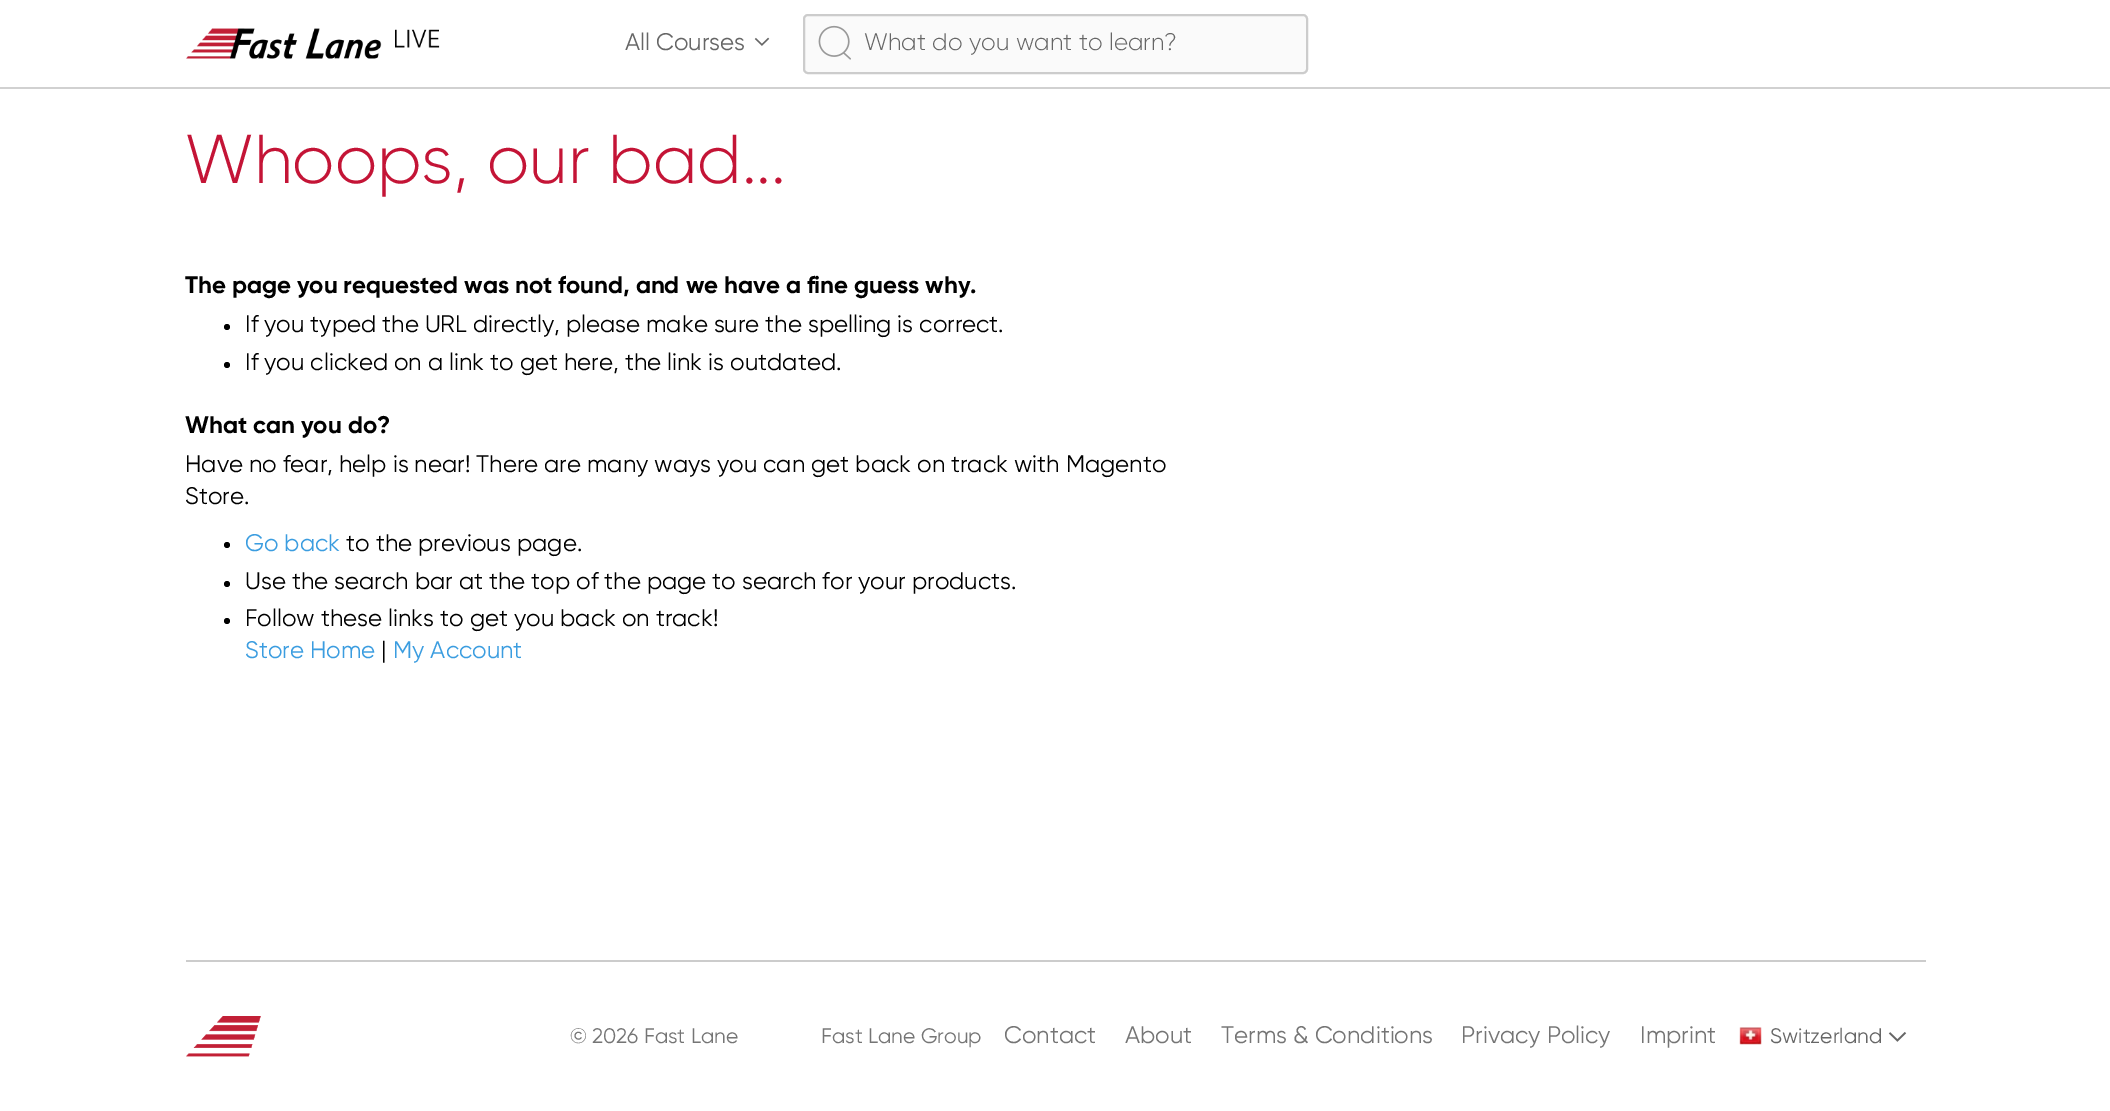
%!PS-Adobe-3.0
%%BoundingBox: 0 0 2110 1111
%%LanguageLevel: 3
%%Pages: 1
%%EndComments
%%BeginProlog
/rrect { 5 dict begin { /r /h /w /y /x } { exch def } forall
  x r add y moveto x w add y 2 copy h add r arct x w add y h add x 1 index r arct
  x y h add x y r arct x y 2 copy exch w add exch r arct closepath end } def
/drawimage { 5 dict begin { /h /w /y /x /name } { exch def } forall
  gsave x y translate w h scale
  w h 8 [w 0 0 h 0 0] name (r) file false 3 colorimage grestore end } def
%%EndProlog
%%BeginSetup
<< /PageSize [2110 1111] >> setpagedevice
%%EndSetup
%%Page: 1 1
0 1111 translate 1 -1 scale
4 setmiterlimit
1 setgray
0 0 2110 1111 rectfill
0.82 setgray
0 87 2110 2 rectfill
(images/1.raw) 186 28 254 31 drawimage
(images/2.raw) 754 37 16 9 drawimage
0.98 setgray
804 15 503 58 4 rrect gsave fill grestore
0.8 setgray
2 setlinewidth
stroke
(images/3.raw) 818 25 33 35 drawimage
0 setgray
newpath 227 327 3 0 360 arc closepath fill
newpath 227 365 3 0 360 arc closepath fill
newpath 227 545 3 0 360 arc closepath fill
newpath 227 584 3 0 360 arc closepath fill
newpath 227 621 3 0 360 arc closepath fill
0.8 setgray
186 960 1740 2 rectfill
(images/4.raw) 186 1016 75 41 drawimage
(images/5.raw) 1739 1027 23 18 drawimage
(images/6.raw) 1888 1032 19 10 drawimage
/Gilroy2-Regular [24 0 0 -24 0 0] selectfont
0.4 setgray
625 50 moveto (All Courses) show
/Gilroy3-Regular [24 0 0 -24 0 0] selectfont
864 50 moveto (What do you want to learn?) show
/Gilroy3-Regular [69 0 0 -69 0 0] selectfont
0.769 0.078 0.212 setrgbcolor
185 183 moveto (Whoops, our bad...) show
/Gilroy-Regular [24 0 0 -24 0 0] selectfont
0 setgray
185 293 moveto (The page you requested was not found, and we have a fine guess why.) show
/Gilroy2-Regular [24 0 0 -24 0 0] selectfont
245 332 moveto (If you typed the URL directly, please make sure the spelling is correct.) show
245 370 moveto (If you clicked on a link to get here, the link is outdated.) show
/Gilroy-Regular [24 0 0 -24 0 0] selectfont
185 433 moveto (What can you do?) show
/Gilroy2-Regular [24 0 0 -24 0 0] selectfont
185 472 moveto (Have no fear, help is near! There are many ways you can get back on track with Magento) show
185 504 moveto (Store.) show
0.231 0.616 0.878 setrgbcolor
245 551 moveto (Go back) show
0 setgray
346 551 moveto (to the previous page.) show
245 589 moveto (Use the search bar at the top of the page to search for your products.) show
245 626 moveto (Follow these links to get you back on track!) show
0.231 0.616 0.878 setrgbcolor
245 658 moveto (Store Home) show
0 setgray
381 658 moveto (|) show
0.231 0.616 0.878 setrgbcolor
393 658 moveto (My Account) show
/Gilroy2-Regular [21 0 0 -21 0 0] selectfont
0.459 setgray
570 1043 moveto (© 2026 Fast Lane) show
821 1043 moveto (Fast Lane Group) show
/Gilroy2-Regular [24 0 0 -24 0 0] selectfont
1004 1043 moveto (Contact) show
1125 1043 moveto (About) show
1221 1043 moveto (Terms & Conditions) show
1461 1043 moveto (Privacy Policy) show
1640 1043 moveto (Imprint) show
/Gilroy2-Regular [21 0 0 -21 0 0] selectfont
0.4 setgray
1770 1043 moveto (Switzerland) show
showpage
%%EOF
